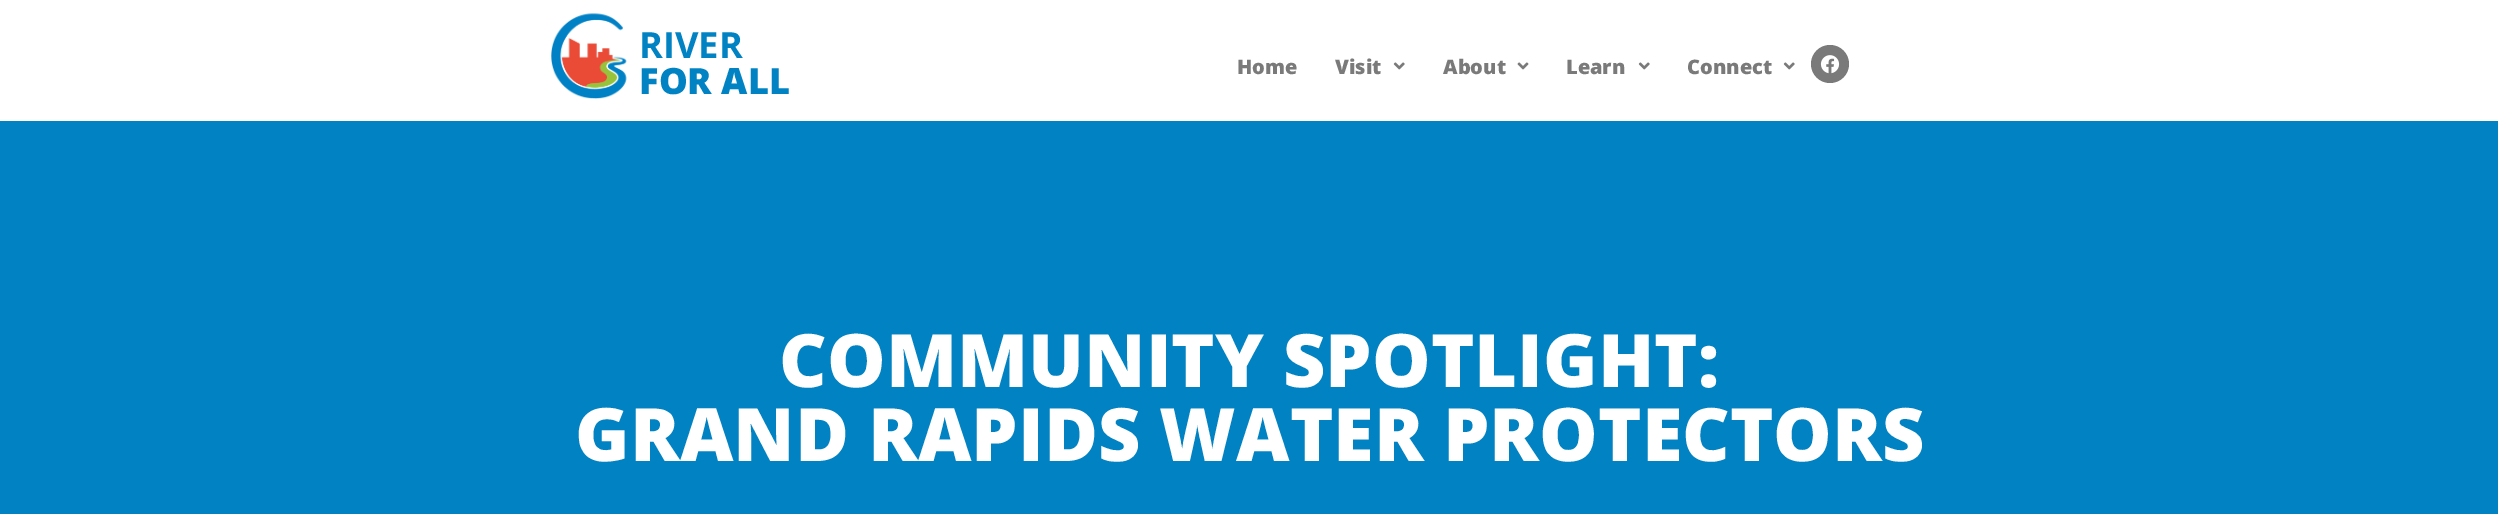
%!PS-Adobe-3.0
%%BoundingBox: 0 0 2498 514
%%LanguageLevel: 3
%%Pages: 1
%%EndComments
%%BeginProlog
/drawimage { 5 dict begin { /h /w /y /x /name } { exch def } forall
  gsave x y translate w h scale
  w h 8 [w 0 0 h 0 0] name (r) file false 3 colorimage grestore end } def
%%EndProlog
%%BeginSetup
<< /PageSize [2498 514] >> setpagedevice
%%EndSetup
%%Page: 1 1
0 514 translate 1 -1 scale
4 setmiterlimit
1 setgray
0 0 2498 514 rectfill
(images/1.raw) 551 13 76 86 drawimage
(images/2.raw) 1393 62 12 8 drawimage
(images/3.raw) 1517 62 12 8 drawimage
(images/2.raw) 1638 62 12 8 drawimage
(images/2.raw) 1783 62 12 8 drawimage
0.478 setgray
newpath 1830 64 19 0 360 arc closepath fill
(images/4.raw) 1820 55 20 19 drawimage
0 0.51 0.765 setrgbcolor
0 121 2498 393 rectfill
/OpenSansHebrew-Bold [36.25 0 0 -36.25 0 0] selectfont
639 58 moveto (RIVER) show
/OpenSansHebrew-ExtraBold [36.25 0 0 -36.25 0 0] selectfont
639 94 moveto (FOR ALL) show
/OpenSans-ExtraBold [20 0 0 -20 0 0] selectfont
0.478 setgray
1237 74 moveto (Home) show
1335 74 moveto (Visit) show
1443 74 moveto (About) show
1566 74 moveto (Learn) show
1687 74 moveto (Connect) show
/OpenSans-ExtraBold [73.75 0 0 -73.75 0 0] selectfont
1 setgray
779 387 moveto (COMMUNITY SPOTLIGHT:) show
575 461 moveto (GRAND RAPIDS WATER PROTECTORS) show
showpage
%%EOF
